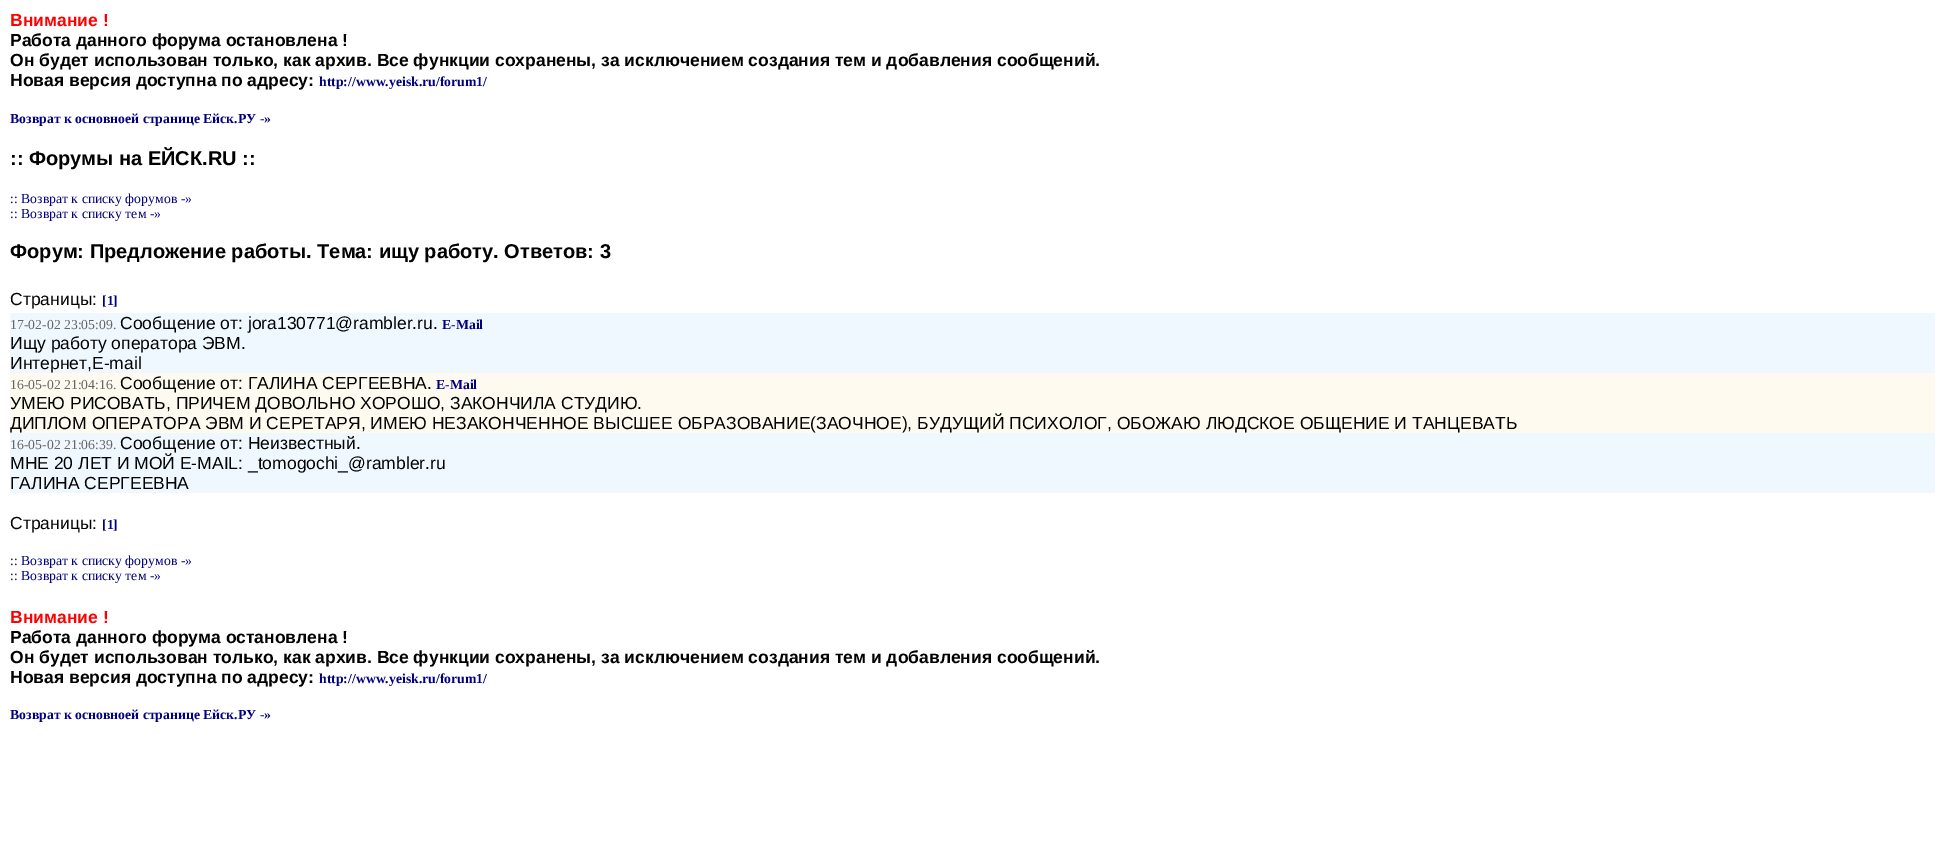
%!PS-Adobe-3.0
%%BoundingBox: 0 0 1945 853
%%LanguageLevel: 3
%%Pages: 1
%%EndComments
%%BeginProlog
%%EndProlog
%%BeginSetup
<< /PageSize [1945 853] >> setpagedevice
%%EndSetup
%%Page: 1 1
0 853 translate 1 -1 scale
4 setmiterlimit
1 setgray
0 0 1945 853 rectfill
0.941 0.973 1 setrgbcolor
10 313 1925 60 rectfill
1 0.98 0.941 setrgbcolor
10 373 1925 60 rectfill
0.941 0.973 1 setrgbcolor
10 433 1925 60 rectfill
/LiberationSans-Bold [17.5 0 0 -17.5 0 0] selectfont
1 0 0 setrgbcolor
10 26 moveto (Внимание !) show
0 setgray
10 46 moveto (Работа данного форума остановлена !) show
10 66 moveto (Он будет использован только, как архив. Все функции сохранены, за исключением создания тем и добавления сообщений.) show
10 86 moveto (Новая версия доступна по адресу:) show
/LiberationSerif-Bold [13.75 0 0 -13.75 0 0] selectfont
0 0 0.502 setrgbcolor
319 86 moveto (http://www.yeisk.ru/forum1/) show
10 123 moveto (Возврат к основноей странице Ейск.РУ -») show
/LiberationSans-Bold [20 0 0 -20 0 0] selectfont
0 setgray
10 165 moveto (:: Форумы на ЕЙСК.RU ::) show
/LiberationSerif-Regular [13.75 0 0 -13.75 0 0] selectfont
0 0 0.502 setrgbcolor
10 203 moveto (:: Возврат к списку форумов -») show
10 218 moveto (:: Возврат к списку тем -») show
/LiberationSans-Bold [20 0 0 -20 0 0] selectfont
0 setgray
10 258 moveto (Форум: Предложение работы. Тема: ищу работу. Ответов: 3) show
/LiberationSans-Regular [17.5 0 0 -17.5 0 0] selectfont
10 305 moveto (Страницы:) show
/LiberationSerif-Bold [13.75 0 0 -13.75 0 0] selectfont
0 0 0.502 setrgbcolor
102 305 moveto ([1]) show
/LiberationSerif-Regular [13.75 0 0 -13.75 0 0] selectfont
0.4 setgray
10 329 moveto (17-02-02 23:05:09.) show
/LiberationSans-Regular [17.5 0 0 -17.5 0 0] selectfont
0 setgray
120 329 moveto (Сообщение от: jora130771@rambler.ru.) show
/LiberationSerif-Bold [13.75 0 0 -13.75 0 0] selectfont
0 0 0.502 setrgbcolor
442 329 moveto (E-Mail) show
/LiberationSans-Regular [17.5 0 0 -17.5 0 0] selectfont
0 setgray
10 349 moveto (Ищу работу оператора ЭВМ.) show
10 369 moveto (Интернет,E-mail) show
/LiberationSerif-Regular [13.75 0 0 -13.75 0 0] selectfont
0.4 setgray
10 389 moveto (16-05-02 21:04:16.) show
/LiberationSans-Regular [17.5 0 0 -17.5 0 0] selectfont
0 setgray
120 389 moveto (Сообщение от: ГАЛИНА СЕРГЕЕВНА.) show
/LiberationSerif-Bold [13.75 0 0 -13.75 0 0] selectfont
0 0 0.502 setrgbcolor
436 389 moveto (E-Mail) show
/LiberationSans-Regular [17.5 0 0 -17.5 0 0] selectfont
0 setgray
10 409 moveto (УМЕЮ РИСОВАТЬ, ПРИЧЕМ ДОВОЛЬНО ХОРОШО, ЗАКОНЧИЛА СТУДИЮ.) show
10 429 moveto (ДИПЛОМ ОПЕРАТОРА ЭВМ И СЕРЕТАРЯ, ИМЕЮ НЕЗАКОНЧЕННОЕ ВЫСШЕЕ ОБРАЗОВАНИЕ\(ЗАОЧНОЕ\), БУДУЩИЙ ПСИХОЛОГ, ОБОЖАЮ ЛЮДСКОЕ ОБЩЕНИЕ И ТАНЦЕВАТЬ) show
/LiberationSerif-Regular [13.75 0 0 -13.75 0 0] selectfont
0.4 setgray
10 449 moveto (16-05-02 21:06:39.) show
/LiberationSans-Regular [17.5 0 0 -17.5 0 0] selectfont
0 setgray
120 449 moveto (Сообщение от: Неизвестный.) show
10 469 moveto (МНЕ 20 ЛЕТ И МОЙ E-MAIL: _tomogochi_@rambler.ru) show
10 489 moveto (ГАЛИНА СЕРГЕЕВНА) show
10 529 moveto (Страницы:) show
/LiberationSerif-Bold [13.75 0 0 -13.75 0 0] selectfont
0 0 0.502 setrgbcolor
102 529 moveto ([1]) show
/LiberationSerif-Regular [13.75 0 0 -13.75 0 0] selectfont
10 565 moveto (:: Возврат к списку форумов -») show
10 580 moveto (:: Возврат к списку тем -») show
/LiberationSans-Bold [17.5 0 0 -17.5 0 0] selectfont
1 0 0 setrgbcolor
10 623 moveto (Внимание !) show
0 setgray
10 643 moveto (Работа данного форума остановлена !) show
10 663 moveto (Он будет использован только, как архив. Все функции сохранены, за исключением создания тем и добавления сообщений.) show
10 683 moveto (Новая версия доступна по адресу:) show
/LiberationSerif-Bold [13.75 0 0 -13.75 0 0] selectfont
0 0 0.502 setrgbcolor
319 683 moveto (http://www.yeisk.ru/forum1/) show
10 719 moveto (Возврат к основноей странице Ейск.РУ -») show
showpage
%%EOF
